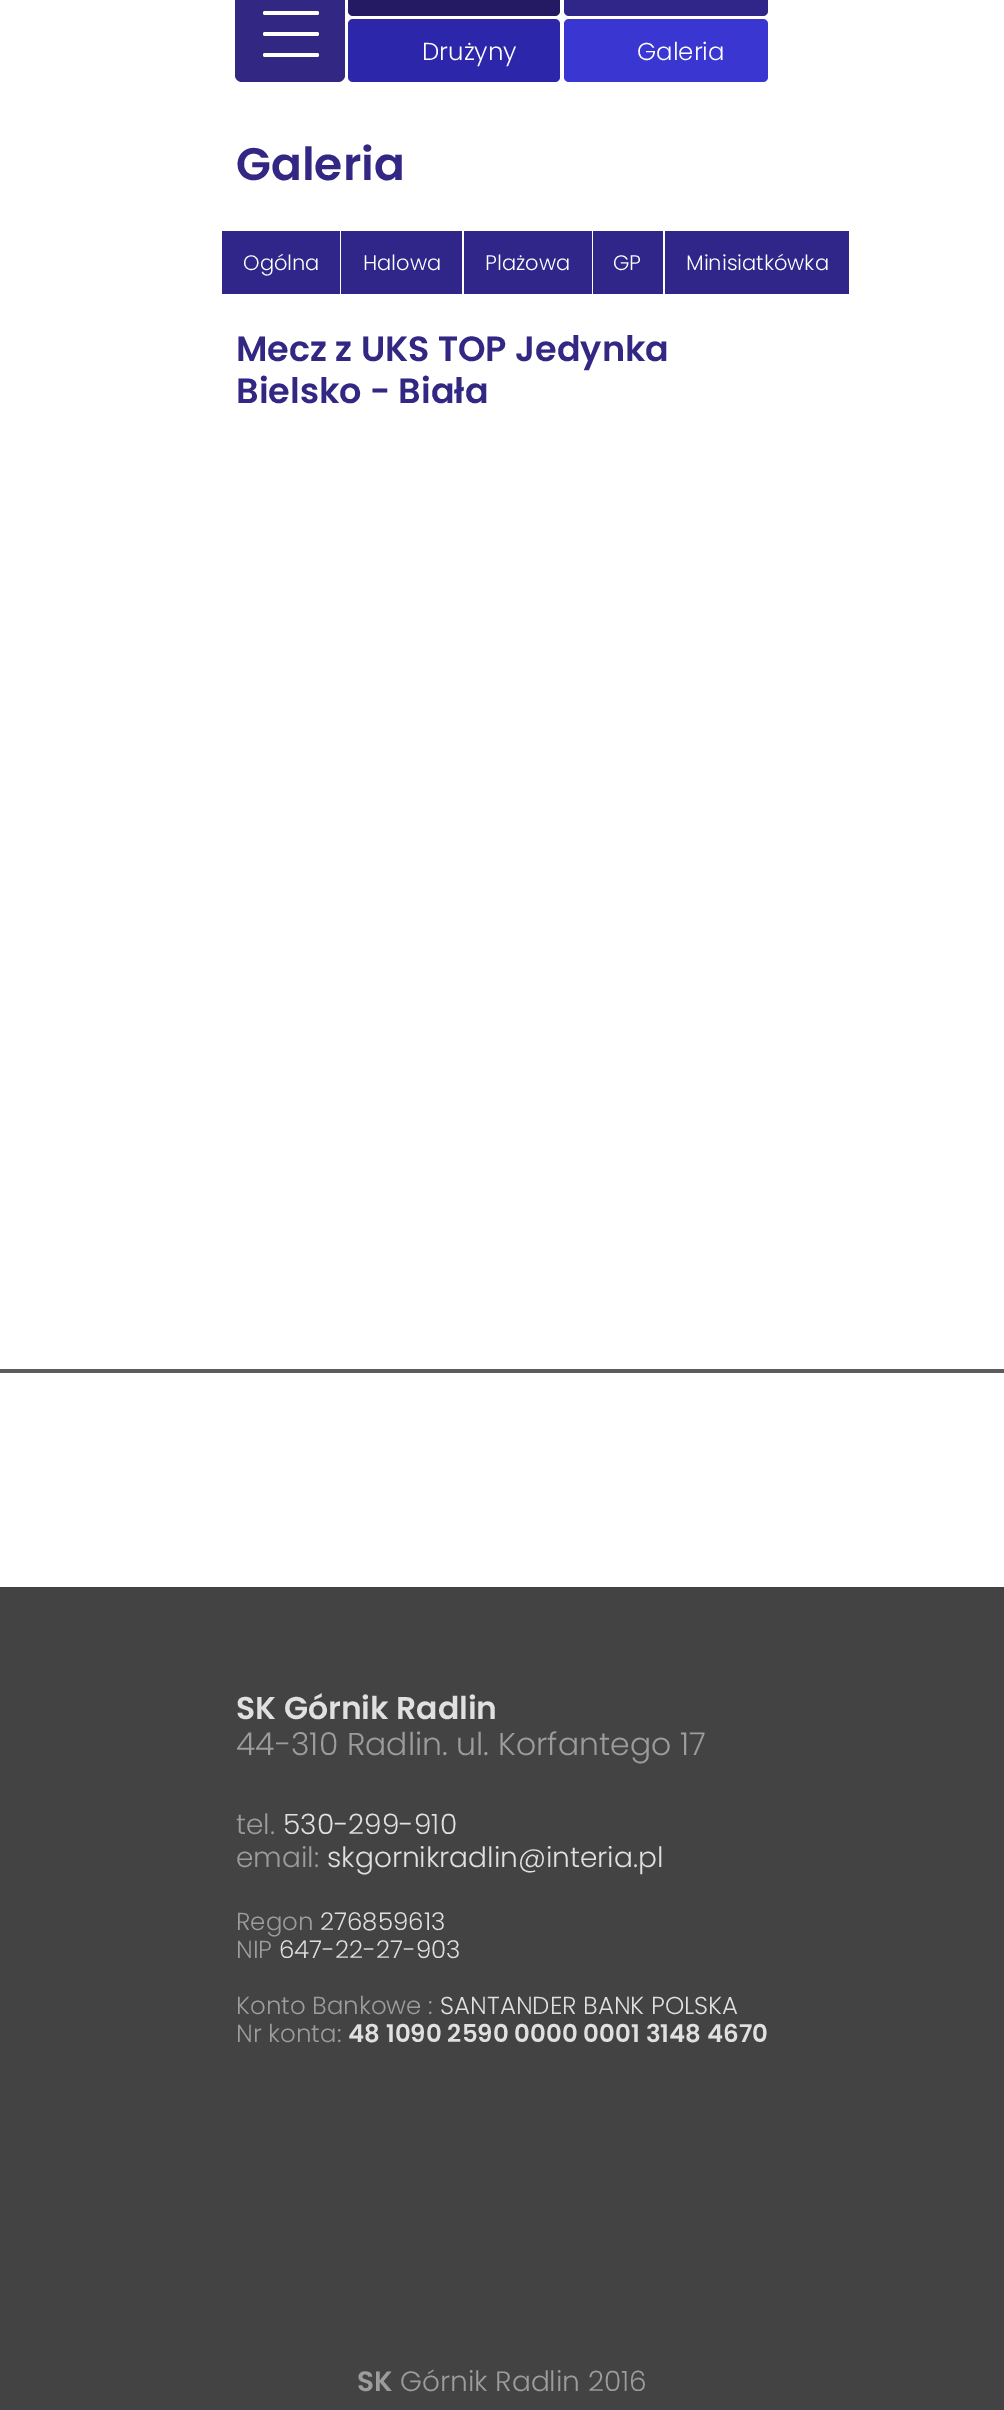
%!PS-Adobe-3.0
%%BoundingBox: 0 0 1004 2410
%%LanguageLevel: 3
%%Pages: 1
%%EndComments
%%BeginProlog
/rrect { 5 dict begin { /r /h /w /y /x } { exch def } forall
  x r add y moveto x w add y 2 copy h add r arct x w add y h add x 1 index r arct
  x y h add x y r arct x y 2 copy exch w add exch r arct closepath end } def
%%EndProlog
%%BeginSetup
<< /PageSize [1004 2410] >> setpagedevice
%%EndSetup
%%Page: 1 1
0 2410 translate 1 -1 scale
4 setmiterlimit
1 setgray
0 0 1004 2410 rectfill
0.196 0.153 0.514 setrgbcolor
235 -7 110 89 7 rrect fill
0.137 0.102 0.388 setrgbcolor
348 -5 212 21 5 rrect fill
0.188 0.149 0.541 setrgbcolor
564 -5 204 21 5 rrect fill
1 setgray
263 11 56 4 2 rrect fill
263 32 56 4 2 rrect fill
263 53 56 4 2 rrect fill
0.173 0.149 0.671 setrgbcolor
348 19 212 63 5 rrect fill
0.224 0.212 0.82 setrgbcolor
564 19 204 63 5 rrect fill
0.188 0.149 0.541 setrgbcolor
222 231 118 63 rectfill
341 231 121 63 rectfill
464 231 128 63 rectfill
593 231 70 63 rectfill
665 231 184 63 rectfill
0.361 setgray
0 1369 1004 4 rectfill
0.263 setgray
0 1587 1004 823 rectfill
/Poppins-Light [24.5 0 0 -24.5 0 0] selectfont
1 setgray
422 60 moveto (Drużyny) show
637 60 moveto (Galeria) show
/Poppins-SemiBold [45.5 0 0 -45.5 0 0] selectfont
0.196 0.153 0.514 setrgbcolor
236 180 moveto (Galeria) show
/Poppins-Light [21 0 0 -21 0 0] selectfont
1 setgray
243 270 moveto (Ogólna) show
363 270 moveto (Halowa) show
485 270 moveto (Plażowa) show
613 270 moveto (GP) show
686 270 moveto (Minisiatkówka) show
/Poppins-SemiBold [35 0 0 -35 0 0] selectfont
0.196 0.153 0.514 setrgbcolor
236 361 moveto (Mecz z UKS TOP Jedynka) show
236 403 moveto (Bielsko - Biała) show
/Poppins-SemiBold [31.5 0 0 -31.5 0 0] selectfont
0.878 setgray
236 1719 moveto (SK Górnik Radlin) show
/Poppins-Light [31.5 0 0 -31.5 0 0] selectfont
0.612 setgray
236 1755 moveto (44-310 Radlin. ul. Korfantego 17) show
/Poppins-Light [28 0 0 -28 0 0] selectfont
236 1834 moveto (tel.) show
0.878 setgray
283 1834 moveto (530-299-910) show
0.612 setgray
236 1867 moveto (email:) show
0.878 setgray
327 1867 moveto (skgornikradlin@interia.pl) show
/Poppins-Light [24.5 0 0 -24.5 0 0] selectfont
0.612 setgray
236 1930 moveto (Regon) show
0.878 setgray
320 1930 moveto (276859613) show
0.612 setgray
236 1958 moveto (NIP) show
0.878 setgray
279 1958 moveto (647-22-27-903) show
0.612 setgray
236 2014 moveto (Konto Bankowe :) show
0.878 setgray
440 2014 moveto (SANTANDER BANK POLSKA) show
0.612 setgray
236 2042 moveto (Nr konta:) show
/Poppins-SemiBold [24.5 0 0 -24.5 0 0] selectfont
0.878 setgray
348 2042 moveto (48 1090 2590 0000 0001 3148 4670) show
/Poppins-SemiBold [28 0 0 -28 0 0] selectfont
0.612 setgray
357 2391 moveto (SK) show
/Poppins-Light [28 0 0 -28 0 0] selectfont
400 2391 moveto (Górnik Radlin 2016) show
showpage
%%EOF
